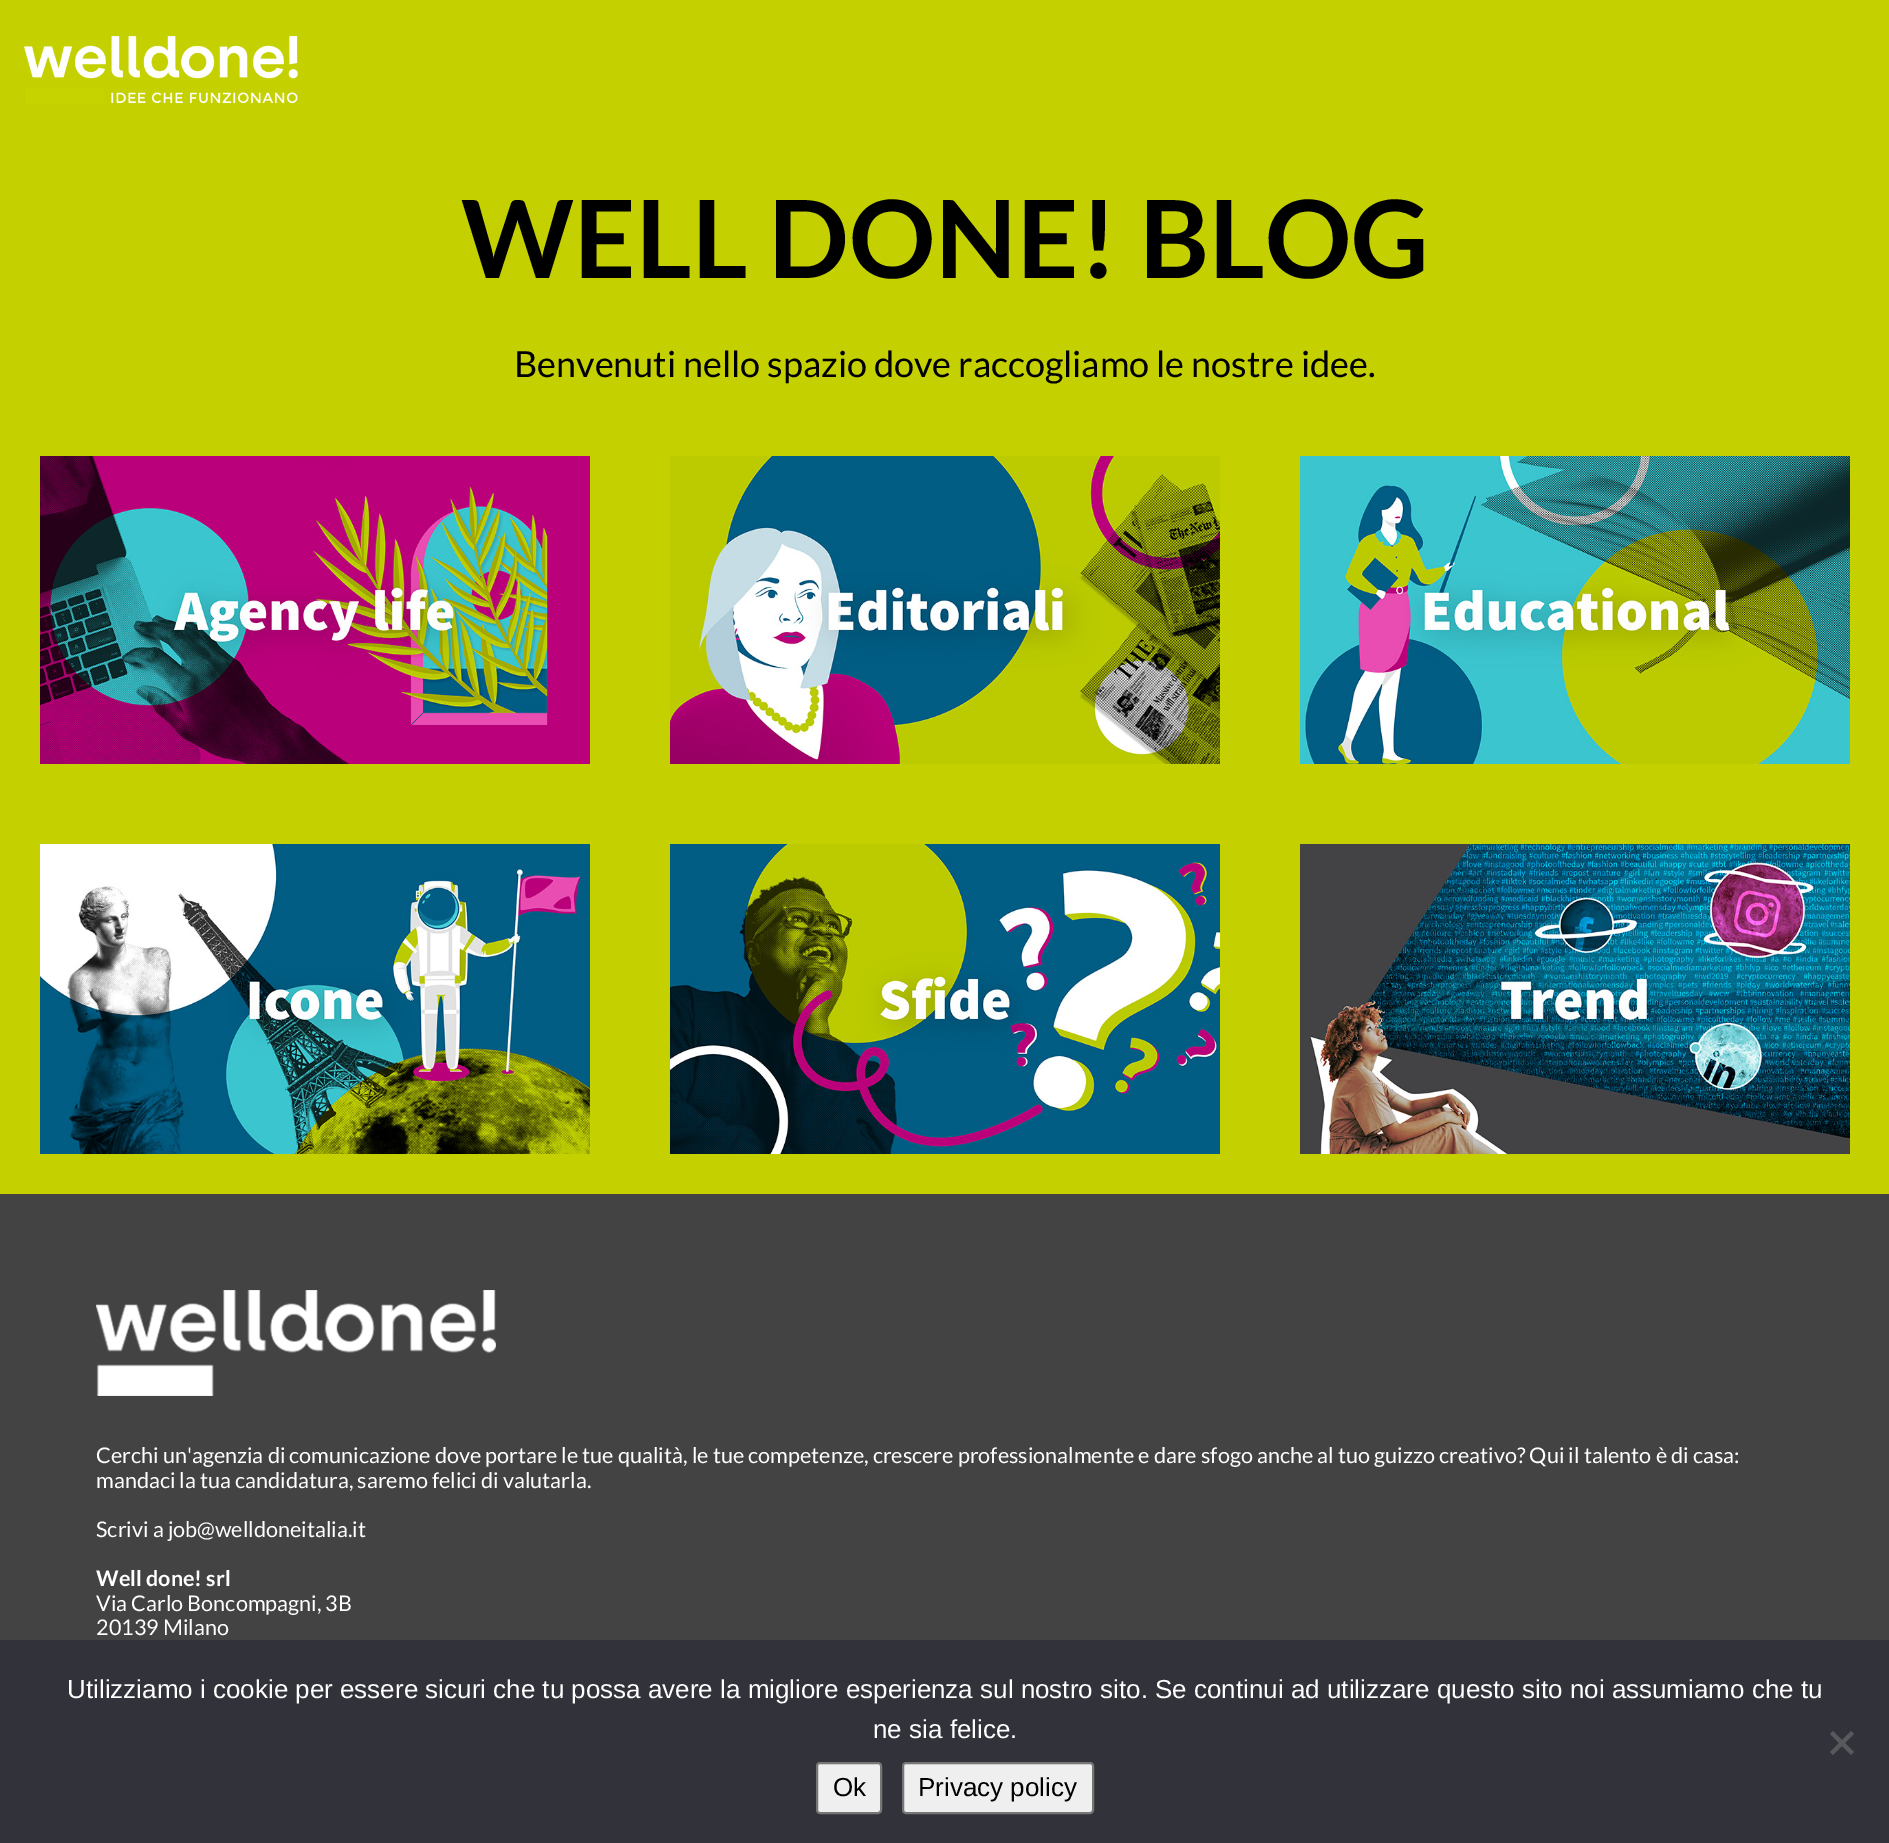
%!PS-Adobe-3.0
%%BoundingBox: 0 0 1889 1843
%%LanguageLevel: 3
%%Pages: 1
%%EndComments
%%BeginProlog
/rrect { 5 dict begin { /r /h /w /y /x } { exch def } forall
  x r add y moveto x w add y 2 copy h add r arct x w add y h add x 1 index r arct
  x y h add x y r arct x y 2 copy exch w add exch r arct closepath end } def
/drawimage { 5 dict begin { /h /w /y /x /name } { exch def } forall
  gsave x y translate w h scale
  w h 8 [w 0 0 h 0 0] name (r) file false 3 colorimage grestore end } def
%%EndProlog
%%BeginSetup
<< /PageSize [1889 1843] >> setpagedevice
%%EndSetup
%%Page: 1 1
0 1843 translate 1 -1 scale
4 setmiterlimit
0.769 0.816 0 setrgbcolor
0 0 1889 1843 rectfill
(images/1.raw) 24 36 274 68 drawimage
(images/2.raw) 40 456 550 308 drawimage
(images/3.raw) 670 456 550 308 drawimage
(images/4.raw) 1300 456 550 308 drawimage
(images/5.raw) 40 844 550 310 drawimage
(images/6.raw) 670 844 550 310 drawimage
(images/7.raw) 1300 844 550 310 drawimage
0.263 setgray
0 1194 1889 446 rectfill
(images/8.raw) 96 1290 400 106 drawimage
0.196 0.196 0.227 setrgbcolor
0 1640 1889 203 rectfill
0.349 0.349 0.365 setrgbcolor
newpath 1851 1731 moveto 1854 1734 lineto 1833 1755 lineto 1830 1752 lineto closepath fill
newpath 1830 1734 moveto 1833 1731 lineto 1854 1752 lineto 1851 1755 lineto closepath fill
0.937 setgray
817 1763 64 50 3 rrect gsave fill grestore
0.463 setgray
2 setlinewidth
stroke
0.937 setgray
903 1763 190 50 3 rrect gsave fill grestore
0.463 setgray
stroke
/Lato-Bold [108 0 0 -108 0 0] selectfont
0 setgray
461 278 moveto (WELL DONE! BLOG) show
/Lato-Regular [36 0 0 -36 0 0] selectfont
514 377 moveto (Benvenuti nello spazio dove raccogliamo le nostre idee.) show
/Lato-Regular [21.6 0 0 -21.6 0 0] selectfont
1 setgray
96 1463 moveto (Cerchi un'agenzia di comunicazione dove portare le tue qualità, le tue competenze, crescere professionalmente e dare sfogo anche al tuo guizzo creativo? Qui il talento è di casa:) show
96 1488 moveto (mandaci la tua candidatura, saremo felici di valutarla.) show
96 1537 moveto (Scrivi a job@welldoneitalia.it) show
/Lato-Bold [21.6 0 0 -21.6 0 0] selectfont
96 1586 moveto (Well done! srl) show
/Lato-Regular [21.6 0 0 -21.6 0 0] selectfont
96 1611 moveto (Via Carlo Boncompagni, 3B) show
96 1635 moveto (20139 Milano) show
/LiberationSans-Regular [26 0 0 -26 0 0] selectfont
67 1698 moveto (Utilizziamo i cookie per essere sicuri che tu possa avere la migliore esperienza sul nostro sito. Se continui ad utilizzare questo sito noi assumiamo che tu) show
873 1738 moveto (ne sia felice.) show
0 setgray
833 1796 moveto (Ok) show
918 1796 moveto (Privacy policy) show
showpage
%%EOF
